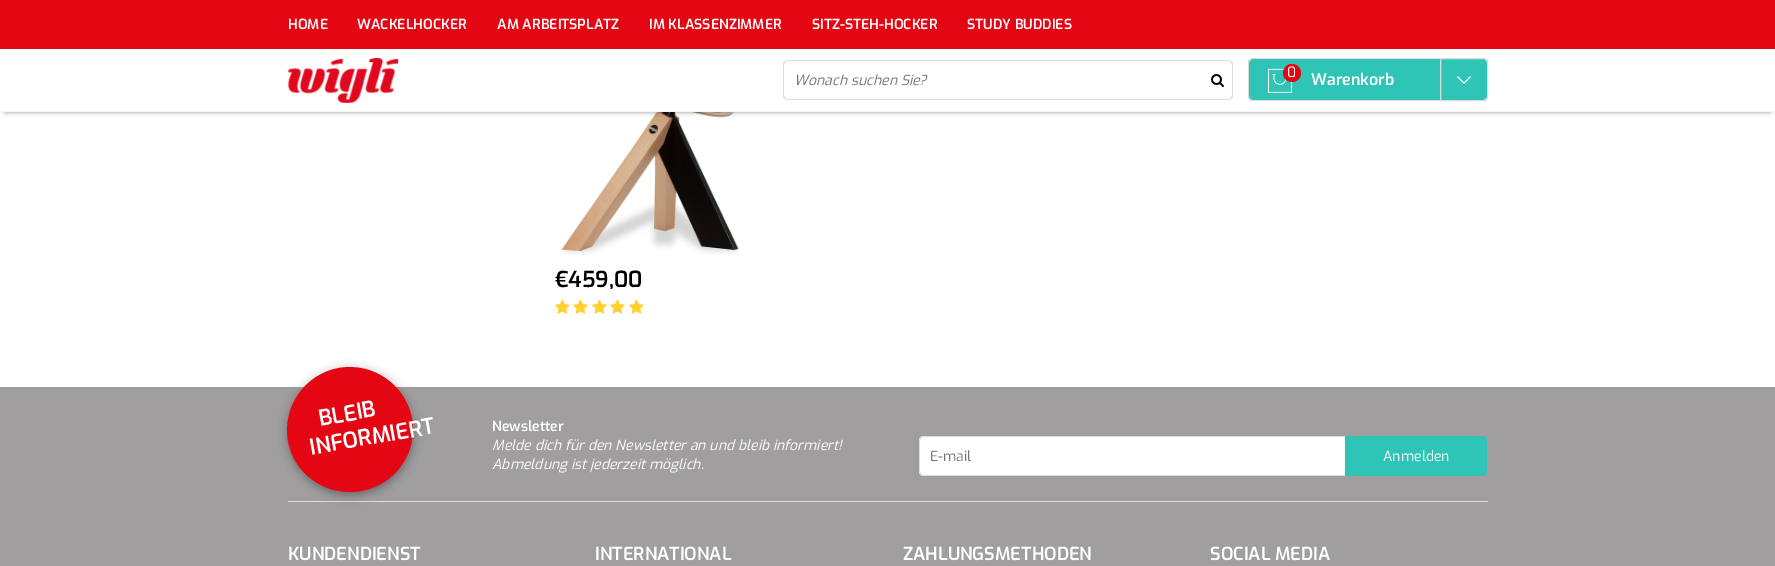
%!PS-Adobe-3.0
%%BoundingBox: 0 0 1775 566
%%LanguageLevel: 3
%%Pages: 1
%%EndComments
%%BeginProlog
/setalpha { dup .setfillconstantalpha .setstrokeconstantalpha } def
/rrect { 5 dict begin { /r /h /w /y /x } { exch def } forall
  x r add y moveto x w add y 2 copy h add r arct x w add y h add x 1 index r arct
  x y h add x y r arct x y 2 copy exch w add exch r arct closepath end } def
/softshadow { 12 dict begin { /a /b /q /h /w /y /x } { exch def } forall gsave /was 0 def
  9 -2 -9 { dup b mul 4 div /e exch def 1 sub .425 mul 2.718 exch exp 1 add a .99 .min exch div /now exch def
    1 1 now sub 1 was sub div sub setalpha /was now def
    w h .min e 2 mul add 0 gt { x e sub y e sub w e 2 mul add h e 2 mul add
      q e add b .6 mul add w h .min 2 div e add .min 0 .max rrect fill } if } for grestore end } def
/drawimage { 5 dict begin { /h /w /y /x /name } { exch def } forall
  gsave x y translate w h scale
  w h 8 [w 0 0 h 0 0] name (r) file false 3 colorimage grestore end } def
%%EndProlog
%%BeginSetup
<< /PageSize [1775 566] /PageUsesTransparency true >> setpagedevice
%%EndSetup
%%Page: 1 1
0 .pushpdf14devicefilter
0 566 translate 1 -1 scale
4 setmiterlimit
1 setgray
0 0 1775 566 rectfill
(images/5.raw) 561 112 178 143 drawimage
0 setgray
5 10 1765 102 0 2.5 0.4 softshadow
1 setgray
0 49 1775 62 rectfill
0.969 0.957 0.957 setrgbcolor
0 111 1775 1 rectfill
0.894 0.024 0.075 setrgbcolor
0 0 1775 49 rectfill
(images/1.raw) 287 58 112 45 drawimage
0.867 setgray
newpath 788 60 moveto 1201 60 lineto 1201 100 lineto 788 100 lineto 785 100 783 98 783 95 curveto 783 65 lineto 783 62 785 60 788 60 curveto closepath 788 61 moveto 1201 61 lineto 1201 99 lineto 788 99 lineto 786 99 784 97 784 95 curveto 784 65 lineto 784 63 786 61 788 61 curveto closepath eofill
newpath 1201 60 moveto 1228 60 lineto 1231 60 1233 62 1233 65 curveto 1233 95 lineto 1233 98 1231 100 1228 100 curveto 1201 100 lineto closepath 1201 61 moveto 1228 61 lineto 1230 61 1232 63 1232 65 curveto 1232 95 lineto 1232 97 1230 99 1228 99 curveto 1201 99 lineto closepath eofill
(images/2.raw) 1211 74 13 13 drawimage
0.18 0.769 0.714 setrgbcolor
1248 58 240 43 5 rrect fill
0.867 setgray
newpath 1253 58 moveto 1296 58 lineto 1296 101 lineto 1253 101 lineto 1250 101 1248 99 1248 96 curveto 1248 63 lineto 1248 60 1250 58 1253 58 curveto closepath 1253 59 moveto 1296 59 lineto 1296 100 lineto 1253 100 lineto 1251 100 1249 98 1249 96 curveto 1249 63 lineto 1249 61 1251 59 1253 59 curveto closepath eofill
(images/3.raw) 1268 68 24 25 drawimage
0.894 0.024 0.075 setrgbcolor
newpath 1292 73 9 0 360 arc closepath fill
0.867 setgray
1296 58 144 1 rectfill
1296 100 144 1 rectfill
newpath 1440.5 58.5 moveto 1483 58.5 lineto 1485.5 58.5 1487.5 60.5 1487.5 63 curveto 1487.5 96 lineto 1487.5 98.5 1485.5 100.5 1483 100.5 curveto 1440.5 100.5 lineto closepath stroke
(images/4.raw) 1457 76 14 8 drawimage
(images/6.raw) 555 299 15 15 drawimage
(images/6.raw) 573 299 15 15 drawimage
(images/6.raw) 592 299 15 15 drawimage
(images/6.raw) 610 299 15 15 drawimage
(images/6.raw) 629 299 15 15 drawimage
0.627 0.62 0.624 setrgbcolor
0 387 1775 179 rectfill
0.867 setgray
288 501 1200 1 rectfill
0 setgray
288 370 125 125 62.5 5 0.35 softshadow
0.894 0.024 0.075 setrgbcolor
newpath 339 368 moveto 373 362 406 385 412 419 curveto 418 453 395 485 361 491 curveto 327 497 294 475 288 441 curveto 282 407 305 374 339 368 curveto closepath fill
1 setgray
newpath 924 436 moveto 1345 436 lineto 1345 476 lineto 924 476 lineto 921 476 919 474 919 471 curveto 919 441 lineto 919 438 921 436 924 436 curveto closepath fill
0.867 setgray
newpath 924 436 moveto 1345 436 lineto 1345 476 lineto 924 476 lineto 921 476 919 474 919 471 curveto 919 441 lineto 919 438 921 436 924 436 curveto closepath 924 437 moveto 1345 437 lineto 1345 475 lineto 924 475 lineto 922 475 920 473 920 471 curveto 920 441 lineto 920 439 922 437 924 437 curveto closepath eofill
0.18 0.769 0.714 setrgbcolor
newpath 1345 436 moveto 1482 436 lineto 1485 436 1487 438 1487 441 curveto 1487 471 lineto 1487 474 1485 476 1482 476 curveto 1345 476 lineto closepath fill
/Exo-SemiBold [14 0 0 -14 0 0] selectfont
1 setgray
288 29 moveto (HOME) show
357 29 moveto (WACKELHOCKER) show
497 29 moveto (AM ARBEITSPLATZ) show
649 29 moveto (IM KLASSENZIMMER) show
812 29 moveto (SITZ-STEH-HOCKER) show
967 29 moveto (STUDY BUDDIES) show
/Exo-Italic [14 0 0 -14 0 0] selectfont
0.459 setgray
794 85 moveto (Wonach suchen Sie?) show
/Exo-Regular [14 0 0 -14 0 0] selectfont
1 setgray
1287 77 moveto (0) show
/Exo-SemiBold [16 0 0 -16 0 0] selectfont
1311 85 moveto (Warenkorb) show
/Exo-SemiBold [22 0 0 -22 0 0] selectfont
0 setgray
555 287 moveto (€459,00) show
1 setgray
gsave 320 426 translate -10 rotate 0 0 moveto (BLEIB) show grestore
gsave 311 455 translate -10 rotate 0 0 moveto (INFORMIERT) show grestore
/Exo-SemiBold [14 0 0 -14 0 0] selectfont
492 431 moveto (Newsletter) show
/Exo-Italic [14 0 0 -14 0 0] selectfont
492 450 moveto (Melde dich für den Newsletter an und bleib informiert!) show
492 469 moveto (Abmeldung ist jederzeit möglich.) show
/Exo-Regular [14 0 0 -14 0 0] selectfont
0.459 setgray
930 461 moveto (E-mail) show
1 setgray
1383 461 moveto (Anmelden) show
/Exo-SemiBold [18 0 0 -18 0 0] selectfont
288 560 moveto (KUNDENDIENST) show
595 560 moveto (INTERNATIONAL) show
903 560 moveto (ZAHLUNGSMETHODEN) show
1210 560 moveto (SOCIAL MEDIA) show
.poppdf14devicefilter showpage
%%EOF
